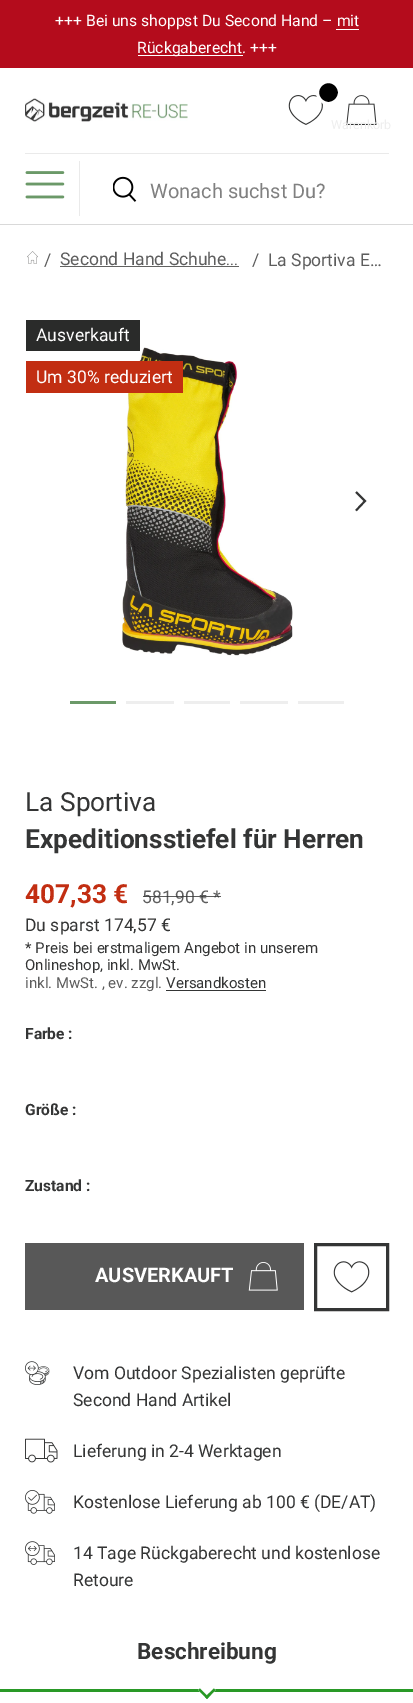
%!PS-Adobe-3.0
%%BoundingBox: 0 0 413 1703
%%LanguageLevel: 3
%%Pages: 1
%%EndComments
%%BeginProlog
/setalpha { dup .setfillconstantalpha .setstrokeconstantalpha } def
/drawimage { 5 dict begin { /h /w /y /x /name } { exch def } forall
  gsave x y translate w h scale
  w h 8 [w 0 0 h 0 0] name (r) file false 3 colorimage grestore end } def
%%EndProlog
%%BeginSetup
<< /PageSize [413 1703] /PageUsesTransparency true >> setpagedevice
%%EndSetup
%%Page: 1 1
0 .pushpdf14devicefilter
0 1703 translate 1 -1 scale
4 setmiterlimit
1 setgray
0 0 413 1703 rectfill
0.706 0.047 0.11 setrgbcolor
0 0 413 68 rectfill
1 setgray
336 29 23 1 rectfill
138 55 105 1 rectfill
0.851 setgray
0 224 413 1 rectfill
(images/1.raw) 25 98 163 24 drawimage
(images/2.raw) 288 95 35 30 drawimage
0 setgray
newpath 328.5 92.5 11 0 360 arc closepath gsave fill grestore
1 setgray
3 setlinewidth
stroke
(images/3.raw) 346 95 31 30 drawimage
0.918 setgray
25 153 364 1 rectfill
79 161 1 55 rectfill
(images/4.raw) 25 171 40 28 drawimage
(images/5.raw) 113 176 24 26 drawimage
(images/6.raw) 27 251 11 13 drawimage
0.384 0.384 0.38 setrgbcolor
60 266 179 1 rectfill
(images/7.raw) 122 347 171 309 drawimage
0.165 0.169 0.165 setrgbcolor
26 320 114 31 rectfill
0.761 0.18 0.071 setrgbcolor
26 361 157 32 rectfill
0.204 0.208 0.208 setrgbcolor
1.9 setlinewidth
newpath 356 492 moveto 365 501 lineto 356 510.5 lineto stroke
0.42 0.6 0.408 setrgbcolor
70 701 46 3 rectfill
0.933 setgray
126 701 48 3 rectfill
184 701 46 3 rectfill
240 701 48 3 rectfill
298 701 46 3 rectfill
0.204 0.208 0.208 setrgbcolor
166 990 100 1 rectfill
0.345 setgray
25 1243 279 67 rectfill
(images/8.raw) 248 1262 30 29 drawimage
0.204 0.208 0.208 setrgbcolor
3 setlinewidth
315.5 1244.5 72 65 rectstroke
(images/9.raw) 333 1261 37 32 drawimage
(images/10.raw) 25 1361 25 24 drawimage
(images/11.raw) 25 1438 33 25 drawimage
(images/12.raw) 25 1490 30 24 drawimage
(images/13.raw) 25 1541 30 24 drawimage
0.161 0.6 0.149 setrgbcolor
0 1689 413 3 rectfill
1 setgray
newpath 207 1681 moveto 215.5 1690 lineto 207 1699 lineto 198 1690 lineto closepath fill
0.161 0.6 0.149 setrgbcolor
newpath 214 1688.5 moveto 215.5 1690 lineto 207 1699 lineto 205 1697 lineto closepath fill
newpath 200 1688.5 moveto 208.5 1697 lineto 207 1699 lineto 198 1690 lineto closepath fill
/Roboto-Regular [15.75 0 0 -15.75 0 0] selectfont
1 setgray
55 26 moveto (+++ Bei uns shoppst Du Second Hand – mit) show
137 53 moveto (Rückgaberecht. +++) show
/Roboto-Regular [12.5 0 0 -12.5 0 0] selectfont
0.933 setgray
331 129 moveto (Warenkorb) show
/Roboto-Regular [20 0 0 -20 0 0] selectfont
0.502 setgray
150 198 moveto (Wonach suchst Du?) show
/Roboto-Regular [17.5 0 0 -17.5 0 0] selectfont
0.365 setgray
44 266 moveto (/) show
60 265 moveto (Second Hand Schuhe) show
/Roboto-Regular [15 0 0 -15 0 0] selectfont
226 265 moveto (...) show
/Roboto-Regular [17.5 0 0 -17.5 0 0] selectfont
252 266 moveto (/) show
268 266 moveto (La Sportiva E…) show
1 setgray
36 341 moveto (Ausverkauft) show
36 383 moveto (Um 30% reduziert) show
/Roboto-Regular [26.25 0 0 -26.25 0 0] selectfont
0.204 0.208 0.208 setrgbcolor
25 811 moveto (La Sportiva) show
/Roboto-Bold [26.25 0 0 -26.25 0 0] selectfont
25 848 moveto (Expeditionsstiefel für Herren) show
0.761 0.18 0.071 setrgbcolor
25 903 moveto (407,33 €) show
/Roboto-Regular [17.5 0 0 -17.5 0 0] selectfont
0.365 setgray
142 903 moveto (581,90 € *) show
0.8 setalpha
0.204 0.208 0.208 setrgbcolor
143 896 78 1 rectfill
1 setalpha
25 931 moveto (Du sparst 174,57 €) show
/Roboto-Regular [15 0 0 -15 0 0] selectfont
25 953 moveto (* Preis bei erstmaligem Angebot in unserem) show
25 970 moveto (Onlineshop, inkl. MwSt.) show
0.365 setgray
25 988 moveto (inkl. MwSt. , ev. zzgl.) show
0.204 0.208 0.208 setrgbcolor
166 988 moveto (Versandkosten) show
/Roboto-Bold [15.5 0 0 -15.5 0 0] selectfont
25 1039 moveto (Farbe :) show
25 1115 moveto (Größe :) show
25 1191 moveto (Zustand :) show
/Roboto-Bold [20 0 0 -20 0 0] selectfont
1 setgray
95 1282 moveto (AUSVERKAUFT) show
/Roboto-Regular [17.5 0 0 -17.5 0 0] selectfont
0.204 0.208 0.208 setrgbcolor
73 1379 moveto (Vom Outdoor Spezialisten geprüfte) show
73 1406 moveto (Second Hand Artikel) show
73 1457 moveto (Lieferung in 2-4 Werktagen) show
73 1508 moveto (Kostenlose Lieferung ab 100 € \(DE/AT\)) show
73 1559 moveto (14 Tage Rückgaberecht und kostenlose) show
73 1586 moveto (Retoure) show
/Roboto-Bold [22.5 0 0 -22.5 0 0] selectfont
137 1659 moveto (Beschreibung) show
.poppdf14devicefilter showpage
%%EOF
